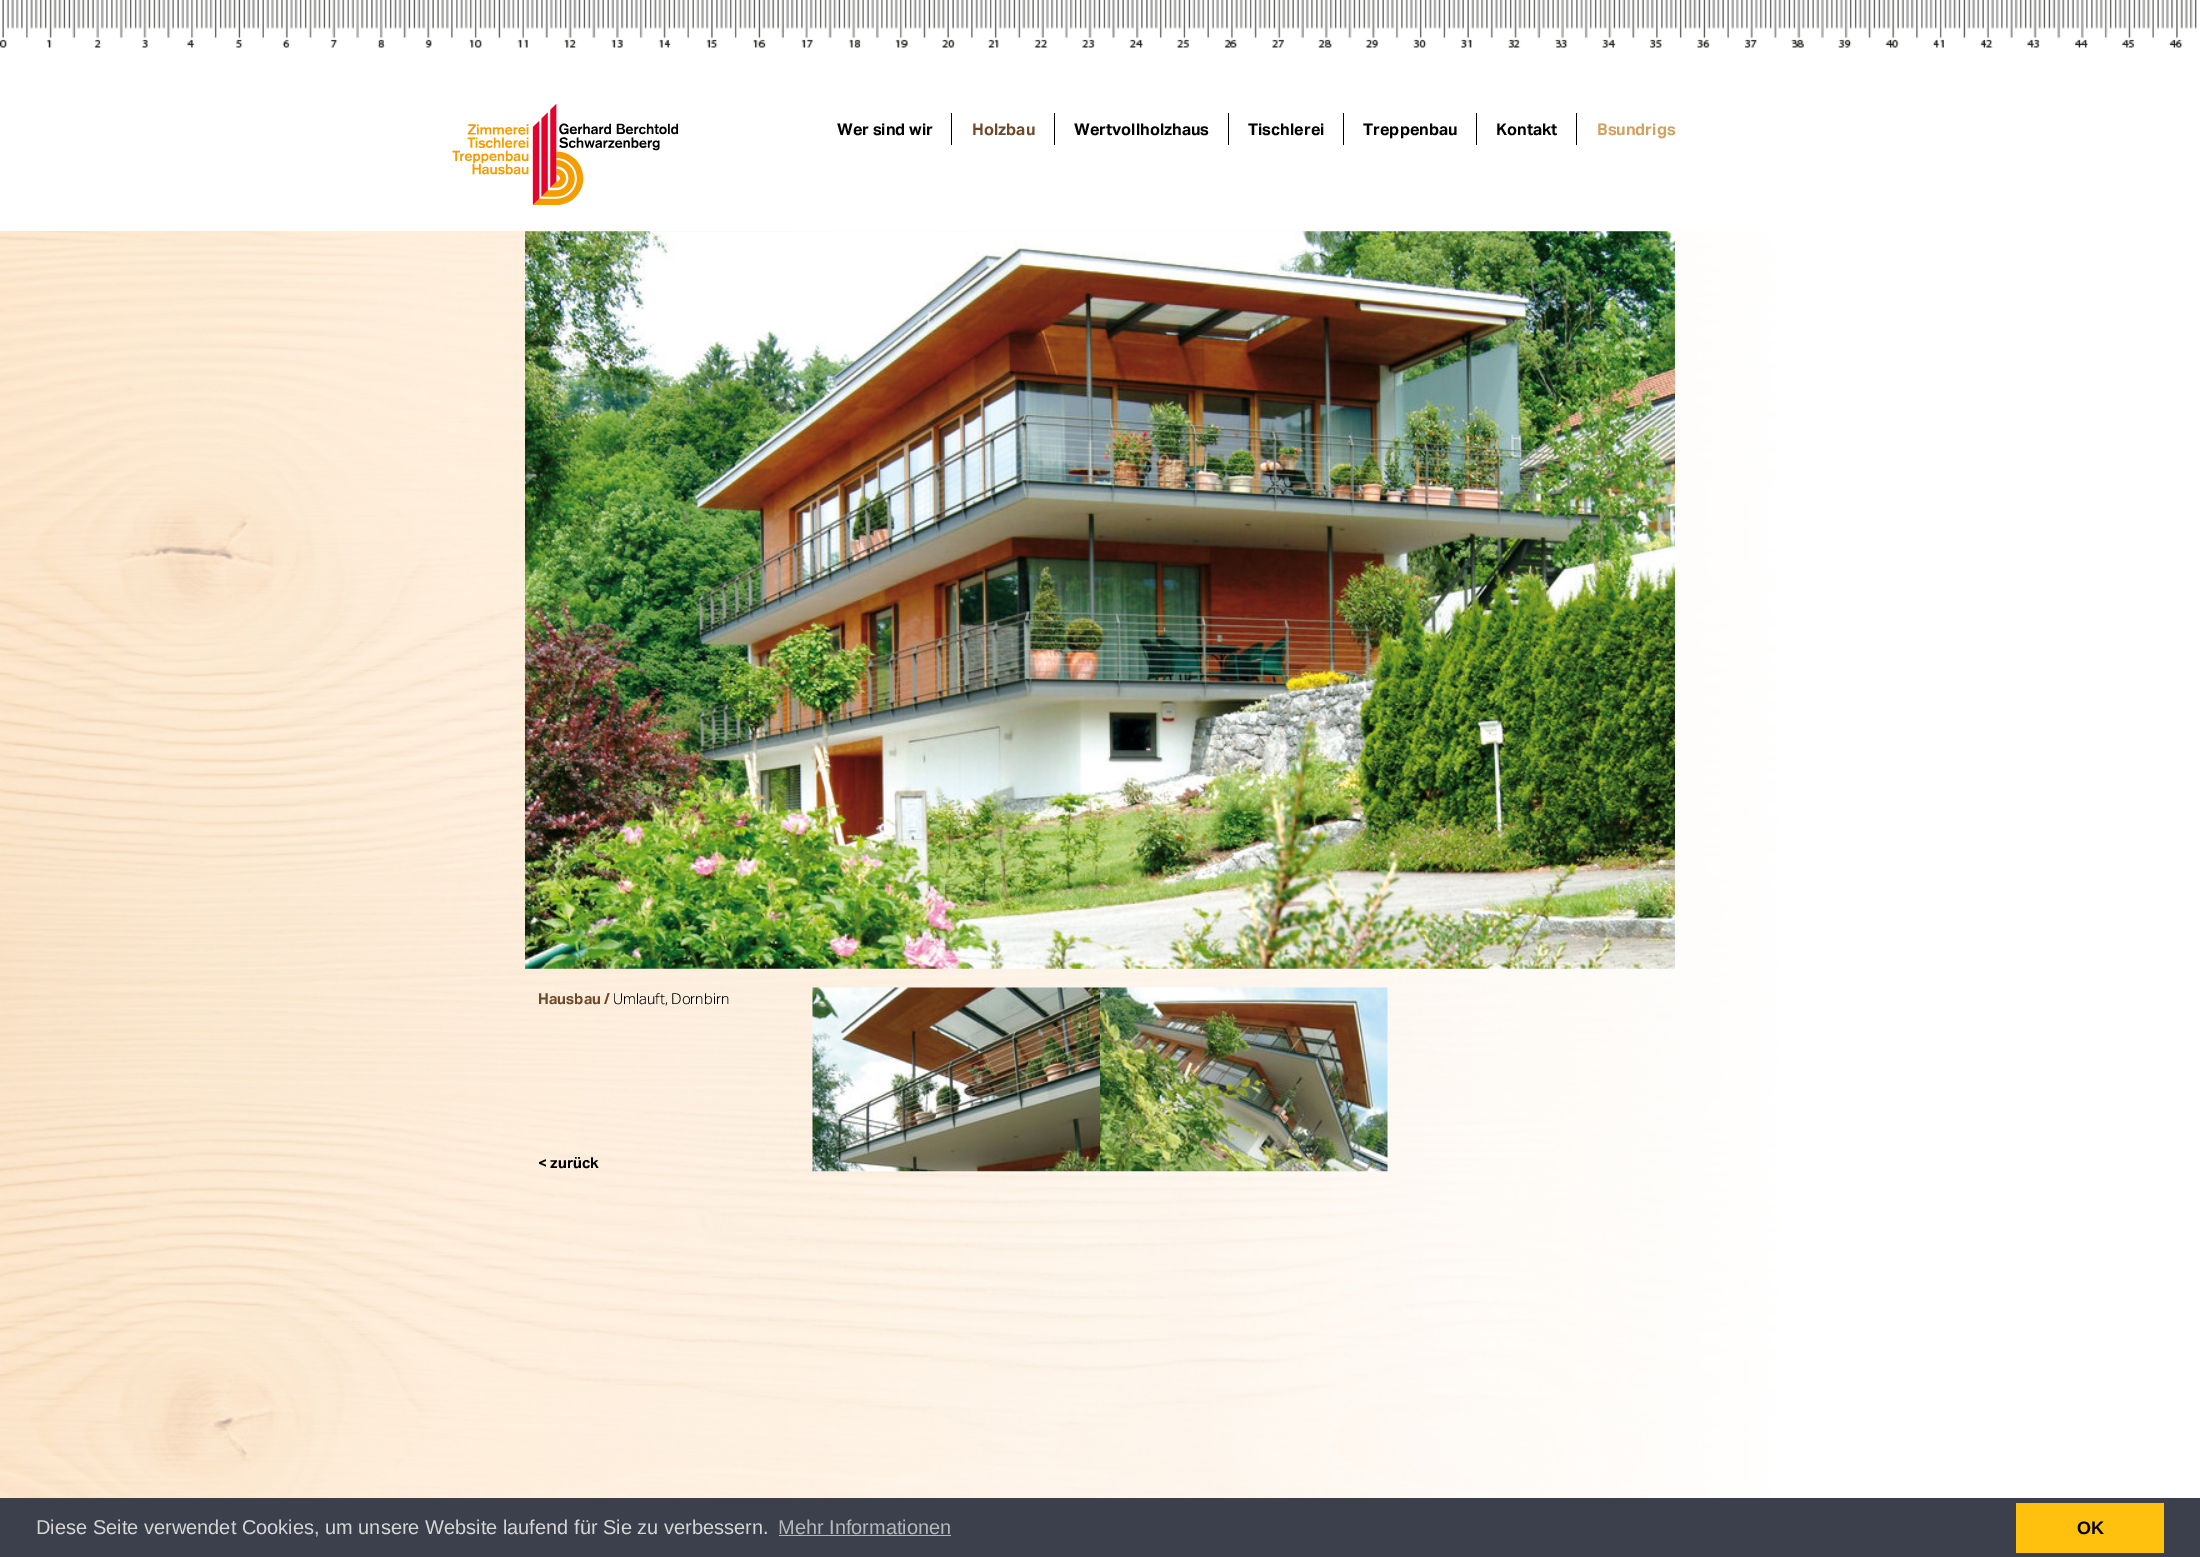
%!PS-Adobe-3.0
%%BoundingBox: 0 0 2200 1557
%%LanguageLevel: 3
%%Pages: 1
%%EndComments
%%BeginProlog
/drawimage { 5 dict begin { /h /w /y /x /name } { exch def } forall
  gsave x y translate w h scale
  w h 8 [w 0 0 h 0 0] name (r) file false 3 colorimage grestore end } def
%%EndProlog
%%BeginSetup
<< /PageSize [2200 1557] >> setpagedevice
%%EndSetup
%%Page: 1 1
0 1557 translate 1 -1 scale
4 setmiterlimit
1 setgray
0 0 2200 1557 rectfill
(images/1.raw) 0 231 1781 1267 drawimage
(images/2.raw) 0 0 2197 48 drawimage
(images/3.raw) 452 103 227 102 drawimage
0 setgray
951 113 1 32 rectfill
1054 113 1 32 rectfill
1228 113 1 32 rectfill
1343 113 1 32 rectfill
1476 113 1 32 rectfill
1576 113 1 32 rectfill
(images/4.raw) 525 231 1150 738 drawimage
(images/5.raw) 812 987 288 185 drawimage
(images/6.raw) 1100 987 288 185 drawimage
0.235 0.251 0.302 setrgbcolor
0 1498 2200 59 rectfill
0.718 0.722 0.733 setrgbcolor
779 1535 172 1 rectfill
1 0.757 0.051 setrgbcolor
2016 1503 148 50 rectfill
/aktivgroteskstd-Bold [16.25 0 0 -16.25 0 0] selectfont
0 setgray
837 135 moveto (Wer sind wir) show
0.435 0.282 0.165 setrgbcolor
972 135 moveto (Holzbau) show
0 setgray
1074 135 moveto (Wertvollholzhaus) show
1248 135 moveto (Tischlerei) show
1363 135 moveto (Treppenbau) show
1496 135 moveto (Kontakt) show
0.824 0.627 0.376 setrgbcolor
1597 135 moveto (Bsundrigs) show
/aktivgroteskstd-Bold [15 0 0 -15 0 0] selectfont
0.435 0.282 0.165 setrgbcolor
538 1004 moveto (Hausbau /) show
/aktivgroteskstd-Regular [15 0 0 -15 0 0] selectfont
0 setgray
613 1004 moveto (Umlauft, Dornbirn) show
/aktivgroteskstd-Bold [15 0 0 -15 0 0] selectfont
538 1168 moveto (< zurück) show
/LiberationSans-Regular [20 0 0 -20 0 0] selectfont
0.839 setgray
36 1534 moveto (Diese Seite verwendet Cookies, um unsere Website laufend für Sie zu verbessern.) show
0.718 0.722 0.733 setrgbcolor
778 1534 moveto (Mehr Informationen) show
/LiberationSans-Bold [18 0 0 -18 0 0] selectfont
0 setgray
2077 1534 moveto (OK) show
showpage
%%EOF
